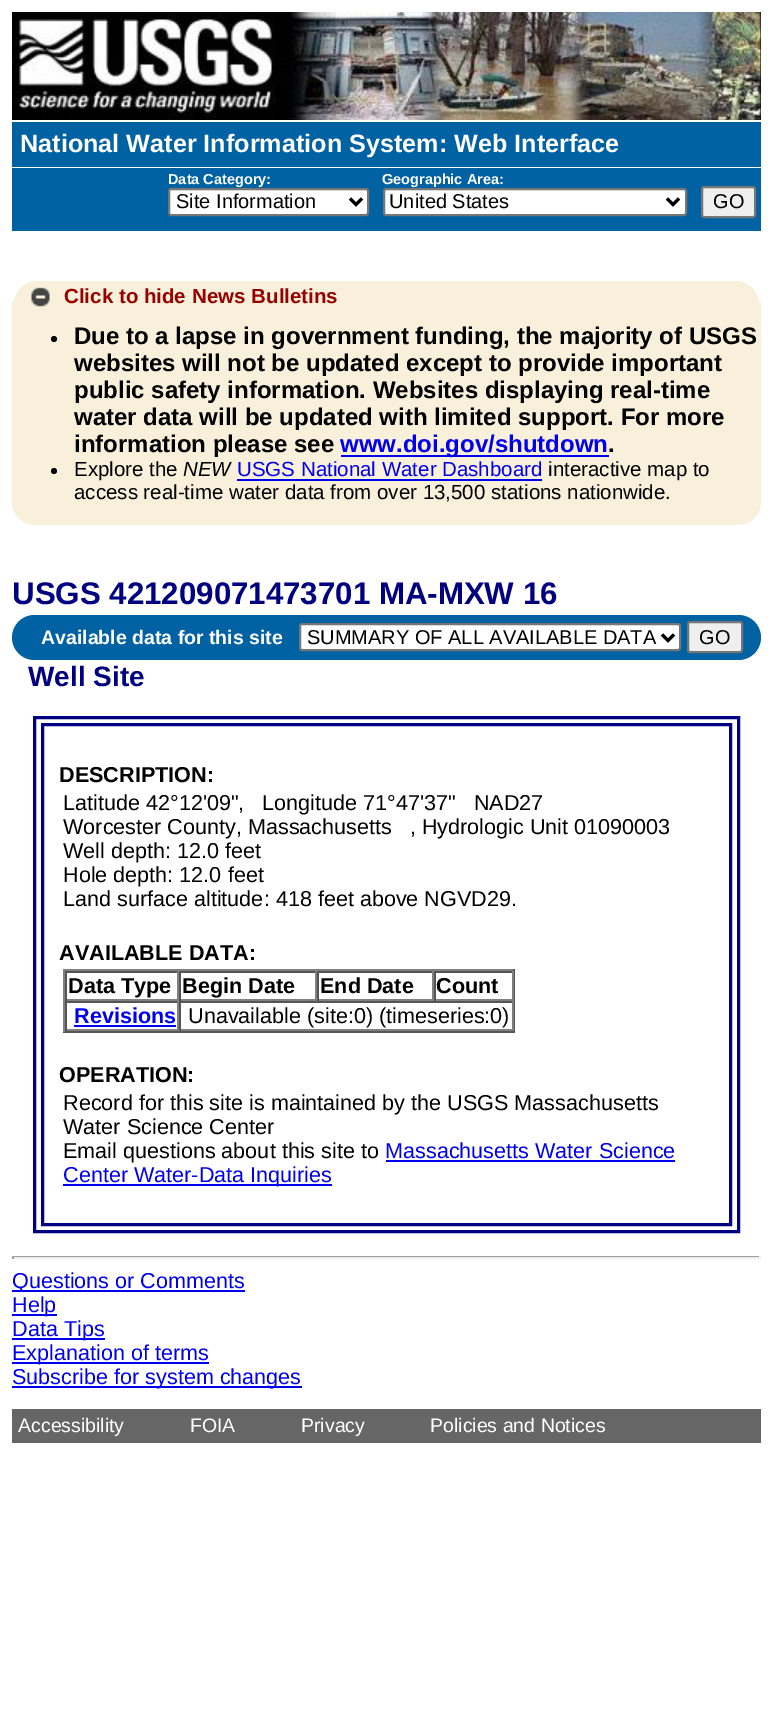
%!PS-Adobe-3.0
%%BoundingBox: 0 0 772 1709
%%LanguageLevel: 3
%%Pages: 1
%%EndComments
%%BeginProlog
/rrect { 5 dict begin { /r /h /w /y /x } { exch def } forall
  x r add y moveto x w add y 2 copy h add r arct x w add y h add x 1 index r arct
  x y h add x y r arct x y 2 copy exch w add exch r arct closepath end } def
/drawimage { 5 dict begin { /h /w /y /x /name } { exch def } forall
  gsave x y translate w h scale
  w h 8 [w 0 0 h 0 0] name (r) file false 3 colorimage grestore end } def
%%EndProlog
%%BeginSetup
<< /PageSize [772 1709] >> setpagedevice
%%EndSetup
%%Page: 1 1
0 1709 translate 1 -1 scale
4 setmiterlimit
1 setgray
0 0 772 1709 rectfill
0 setgray
276 12 485 108 rectfill
(images/1.raw) 279 12 482 108 drawimage
(images/2.raw) 12 12 264 108 drawimage
0 0.38 0.639 setrgbcolor
12 122 749 45 rectfill
12 168 749 63 rectfill
1 setgray
169 189 199 26 2 rrect gsave fill grestore
0.463 setgray
2 setlinewidth
stroke
0 setgray
3 setlinewidth
newpath 350 198.5 moveto 356 204.5 lineto 362 198.5 lineto stroke
1 setgray
384 189 302 26 2 rrect gsave fill grestore
0.463 setgray
2 setlinewidth
stroke
0 setgray
3 setlinewidth
newpath 667 198.5 moveto 673 204.5 lineto 679 198.5 lineto stroke
0.937 setgray
702 187 53 30 2 rrect gsave fill grestore
0.463 setgray
2 setlinewidth
stroke
0.973 0.941 0.859 setrgbcolor
newpath 12 302 moveto 761 302 lineto 761 502 lineto 761 514.5 750.5 525 738 525 curveto 35 525 lineto 22.5 525 12 514.5 12 502 curveto closepath fill
newpath 37 281 moveto 736 281 lineto 748.5 281 759 291.5 759 304 curveto 759 312 lineto 14 312 lineto 14 304 lineto 14 291.5 24.5 281 37 281 curveto closepath fill
(images/3.raw) 31 287 19 20 drawimage
0 setgray
newpath 54 339 3 0 360 arc closepath fill
0 0 0.933 setrgbcolor
341 455 268 2 rectfill
0 setgray
newpath 54 471 3 0 360 arc closepath fill
0 0 0.933 setrgbcolor
237 479 305 2 rectfill
0 0.38 0.639 setrgbcolor
12 615 749 45 22.5 rrect fill
1 setgray
300 624 380 26 2 rrect gsave fill grestore
0.463 setgray
stroke
0 setgray
3 setlinewidth
newpath 662 634.5 moveto 668 640.5 lineto 674 634.5 lineto stroke
0.937 setgray
688 622 54 30 2 rrect gsave fill grestore
0.463 setgray
2 setlinewidth
stroke
0 0 0.502 setrgbcolor
3 setlinewidth
34.5 717.5 704 514 rectstroke
42.5 724.5 688 500 rectstroke
0.502 setgray
63 969 452 2 rectfill
0.333 setgray
513 969 2 63 rectfill
63 1031 452 2 rectfill
0.502 setgray
63 969 2 63 rectfill
0.333 setgray
65 971 448 2 rectfill
0.502 setgray
177 971 2 30 rectfill
65 999 114 2 rectfill
0.333 setgray
65 971 2 30 rectfill
0.502 setgray
315 971 2 30 rectfill
179 999 138 2 rectfill
0.333 setgray
179 971 2 30 rectfill
0.502 setgray
432 971 2 30 rectfill
317 999 117 2 rectfill
0.333 setgray
317 971 2 30 rectfill
0.502 setgray
512 971 2 30 rectfill
434 999 79 2 rectfill
0.333 setgray
434 971 2 30 rectfill
65 1001 448 2 rectfill
0.502 setgray
177 1001 2 30 rectfill
65 1029 114 2 rectfill
0.333 setgray
65 1001 2 30 rectfill
0 0 0.933 setrgbcolor
74 1025 102 2 rectfill
0.502 setgray
512 1001 2 30 rectfill
179 1029 334 2 rectfill
0.333 setgray
179 1001 2 30 rectfill
0 0 0.933 setrgbcolor
386 1160 289 2 rectfill
63 1184 269 2 rectfill
0.624 setgray
12 1256 749 1 rectfill
0.933 setgray
759 1256 2 3 rectfill
12 1257 749 2 rectfill
0.624 setgray
12 1256 2 3 rectfill
0 0 0.933 setrgbcolor
12 1290 233 2 rectfill
12 1314 45 2 rectfill
12 1338 93 2 rectfill
12 1362 197 2 rectfill
12 1386 290 2 rectfill
0.4 setgray
12 1409 749 34 rectfill
/LiberationSans-Bold [25.2 0 0 -25.2 0 0] selectfont
1 setgray
20 152 moveto (National Water Information System: Web Interface) show
/LiberationSans-Bold [14.5 0 0 -14.5 0 0] selectfont
168 184 moveto (Data Category:) show
/LiberationSans-Regular [20 0 0 -20 0 0] selectfont
0 setgray
176 208 moveto (Site Information) show
/LiberationSans-Bold [14.5 0 0 -14.5 0 0] selectfont
1 setgray
382 184 moveto (Geographic Area:) show
/LiberationSans-Regular [20 0 0 -20 0 0] selectfont
0 setgray
389 208 moveto (United States) show
713 208 moveto (GO) show
/LiberationSans-Bold [20.5 0 0 -20.5 0 0] selectfont
0.6 0 0 setrgbcolor
64 303 moveto (Click to hide) show
192 303 moveto (News Bulletins) show
/LiberationSans-Bold [24 0 0 -24 0 0] selectfont
0 setgray
74 344 moveto (Due to a lapse in government funding, the majority of USGS) show
74 371 moveto (websites will not be updated except to provide important) show
74 398 moveto (public safety information. Websites displaying real-time) show
74 425 moveto (water data will be updated with limited support. For more) show
74 452 moveto (information please see) show
0 0 0.933 setrgbcolor
340 452 moveto (www.doi.gov/shutdown) show
0 setgray
608 452 moveto (.) show
/LiberationSans-Regular [20.5 0 0 -20.5 0 0] selectfont
74 476 moveto (Explore the) show
/LiberationSans-Italic [20.5 0 0 -20.5 0 0] selectfont
183 476 moveto (NEW) show
/LiberationSans-Regular [20.5 0 0 -20.5 0 0] selectfont
0 0 0.933 setrgbcolor
237 476 moveto (USGS National Water Dashboard) show
0 setgray
548 476 moveto (interactive map to) show
74 499 moveto (access real-time water data from over 13,500 stations nationwide.) show
/LiberationSans-Bold [31.25 0 0 -31.25 0 0] selectfont
0 0 0.502 setrgbcolor
12 604 moveto (USGS 421209071473701 MA-MXW 16) show
/LiberationSans-Bold [19.5 0 0 -19.5 0 0] selectfont
1 setgray
41 644 moveto (Available data for this site) show
/LiberationSans-Regular [20 0 0 -20 0 0] selectfont
0 setgray
307 644 moveto (SUMMARY OF ALL AVAILABLE DATA) show
699 644 moveto (GO) show
/LiberationSans-Bold [28 0 0 -28 0 0] selectfont
0 0 0.502 setrgbcolor
28 686 moveto (Well Site) show
/LiberationSans-Bold [21.6 0 0 -21.6 0 0] selectfont
0 setgray
59 782 moveto (DESCRIPTION:) show
/LiberationSans-Regular [21.6 0 0 -21.6 0 0] selectfont
63 810 moveto (Latitude 42°12'09",   Longitude 71°47'37"   NAD27) show
63 834 moveto (Worcester County, Massachusetts   , Hydrologic Unit 01090003) show
63 858 moveto (Well depth: 12.0 feet) show
63 882 moveto (Hole depth: 12.0 feet) show
63 906 moveto (Land surface altitude: 418 feet above NGVD29.) show
/LiberationSans-Bold [21.6 0 0 -21.6 0 0] selectfont
59 960 moveto (AVAILABLE DATA:) show
68 993 moveto (Data Type) show
182 993 moveto (Begin Date) show
320 993 moveto (End Date) show
436 993 moveto (Count) show
0 0 0.933 setrgbcolor
74 1023 moveto (Revisions) show
/LiberationSans-Regular [21.6 0 0 -21.6 0 0] selectfont
0 setgray
188 1023 moveto (Unavailable \(site:0\) \(timeseries:0\)) show
/LiberationSans-Bold [21.6 0 0 -21.6 0 0] selectfont
59 1082 moveto (OPERATION:) show
/LiberationSans-Regular [21.6 0 0 -21.6 0 0] selectfont
63 1110 moveto (Record for this site is maintained by the USGS Massachusetts) show
63 1134 moveto (Water Science Center) show
63 1158 moveto (Email questions about this site to) show
0 0 0.933 setrgbcolor
385 1158 moveto (Massachusetts Water Science) show
63 1182 moveto (Center Water-Data Inquiries) show
12 1288 moveto (Questions or Comments) show
12 1312 moveto (Help) show
12 1336 moveto (Data Tips) show
12 1360 moveto (Explanation of terms) show
12 1384 moveto (Subscribe for system changes) show
/LiberationSans-Regular [19.5 0 0 -19.5 0 0] selectfont
1 setgray
18 1432 moveto (Accessibility) show
190 1432 moveto (FOIA) show
301 1432 moveto (Privacy) show
430 1432 moveto (Policies and Notices) show
showpage
%%EOF
